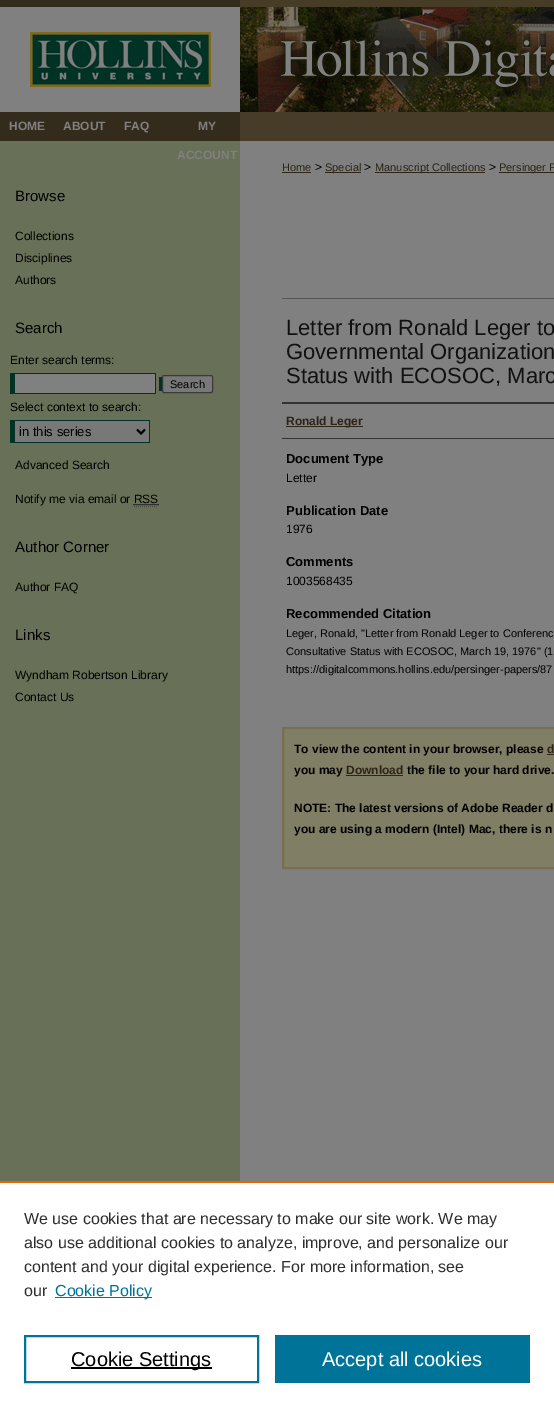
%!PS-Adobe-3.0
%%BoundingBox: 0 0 554 1407
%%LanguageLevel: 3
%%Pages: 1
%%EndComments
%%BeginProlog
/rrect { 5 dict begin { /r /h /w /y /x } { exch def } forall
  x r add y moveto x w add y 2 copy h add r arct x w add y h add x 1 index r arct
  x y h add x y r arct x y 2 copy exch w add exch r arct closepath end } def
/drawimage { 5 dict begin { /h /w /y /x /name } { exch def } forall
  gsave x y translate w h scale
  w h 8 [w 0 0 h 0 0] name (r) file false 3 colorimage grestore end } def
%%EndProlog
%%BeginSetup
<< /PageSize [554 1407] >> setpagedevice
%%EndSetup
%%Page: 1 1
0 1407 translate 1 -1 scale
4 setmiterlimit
0.502 setgray
0 0 554 1407 rectfill
(images/1.raw) 0 0 240 87 drawimage
(images/2.raw) 240 0 314 112 drawimage
0.278 0.235 0.153 setrgbcolor
240 112 314 29 rectfill
0.2 0.169 0.11 setrgbcolor
0 112 240 29 rectfill
0.408 0.443 0.341 setrgbcolor
0 141 240 1040 rectfill
0 0.2 0.145 setrgbcolor
10 373 146 21 rectfill
159 377 3 14 rectfill
0.502 setgray
15 374 140 19 rectfill
0.471 setgray
162.5 375.5 50 17 1.5 rrect gsave fill grestore
0.231 setgray
stroke
0.471 setgray
15 421 134 21 rectfill
0 0.2 0.145 setrgbcolor
10 420 140 1 rectfill
149 420 1 23 rectfill
10 442 140 1 rectfill
10 420 5 23 rectfill
0 setgray
2 setlinewidth
newpath 137 429.5 moveto 141 433.5 lineto 145 429.5 lineto stroke
1 setlinewidth
[1 1] 0 setdash
newpath 133.5 504.5 moveto 158.5 504.5 lineto stroke
0.302 setgray
newpath 134 506.5 moveto 158 506.5 lineto stroke
0.173 0.145 0.094 setrgbcolor
282 172 29 1 rectfill
325 172 36 1 rectfill
375 172 110 1 rectfill
499 172 55 1 rectfill
0.333 setgray
282 298 272 1 rectfill
0.2 setgray
282 402 272 2 rectfill
282 438 272 1 rectfill
0.173 0.145 0.094 setrgbcolor
286 426 77 1 rectfill
0.502 0.494 0.396 setrgbcolor
newpath 283 728 moveto 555 728 lineto 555 868 lineto 283 868 lineto closepath gsave fill grestore
0.471 0.431 0.318 setrgbcolor
2 setlinewidth
[] 0 setdash
stroke
0.173 0.145 0.094 setrgbcolor
547 754 7 1 rectfill
346 775 57 1 rectfill
1 setgray
0 1183 554 224 rectfill
0.922 0.396 0 setrgbcolor
0 1181 554 2 rectfill
0 0.451 0.596 setrgbcolor
55 1297 97 1 rectfill
25 1336 233 46 rectstroke
0 setgray
71 1367 141 2 rectfill
0 0.451 0.596 setrgbcolor
275 1335 255 48 rectfill
/LiberationSans-Bold [12 0 0 -12 0 0] selectfont
0.502 setgray
9 130 moveto (HOME) show
63 130 moveto (ABOUT) show
124 130 moveto (FAQ) show
198 130 moveto (MY) show
177 159 moveto (ACCOUNT) show
/LiberationSans-Regular [15 0 0 -15 0 0] selectfont
0 setgray
15 201 moveto (Browse) show
/LiberationSans-Regular [12 0 0 -12 0 0] selectfont
15 240 moveto (Collections) show
15 262 moveto (Disciplines) show
15 284 moveto (Authors) show
/LiberationSans-Regular [15 0 0 -15 0 0] selectfont
15 333 moveto (Search) show
/LiberationSans-Regular [12 0 0 -12 0 0] selectfont
10 364 moveto (Enter search terms:) show
/LiberationSans-Regular [11 0 0 -11 0 0] selectfont
170 388 moveto (Search) show
/LiberationSans-Regular [12 0 0 -12 0 0] selectfont
10 411 moveto (Select context to search:) show
/LiberationSans-Regular [13 0 0 -13 0 0] selectfont
19 436 moveto (in this series) show
/LiberationSans-Regular [12 0 0 -12 0 0] selectfont
15 469 moveto (Advanced Search) show
15 503 moveto (Notify me via email or RSS) show
/LiberationSans-Regular [15 0 0 -15 0 0] selectfont
15 552 moveto (Author Corner) show
/LiberationSans-Regular [12 0 0 -12 0 0] selectfont
15 591 moveto (Author FAQ) show
/LiberationSans-Regular [15 0 0 -15 0 0] selectfont
15 640 moveto (Links) show
/LiberationSans-Regular [12 0 0 -12 0 0] selectfont
15 679 moveto (Wyndham Robertson Library) show
15 701 moveto (Contact Us) show
/LiberationSans-Regular [11 0 0 -11 0 0] selectfont
0.173 0.145 0.094 setrgbcolor
282 171 moveto (Home) show
/LiberationSans-Regular [12 0 0 -12 0 0] selectfont
0 setgray
315 171 moveto (>) show
/LiberationSans-Regular [11 0 0 -11 0 0] selectfont
0.173 0.145 0.094 setrgbcolor
325 171 moveto (Special) show
/LiberationSans-Regular [12 0 0 -12 0 0] selectfont
0 setgray
364 171 moveto (>) show
/LiberationSans-Regular [11 0 0 -11 0 0] selectfont
0.173 0.145 0.094 setrgbcolor
375 171 moveto (Manuscript Collections) show
/LiberationSans-Regular [12 0 0 -12 0 0] selectfont
0 setgray
489 171 moveto (>) show
/LiberationSans-Regular [11 0 0 -11 0 0] selectfont
0.173 0.145 0.094 setrgbcolor
499 171 moveto (Persinger P) show
/LiberationSans-Regular [22 0 0 -22 0 0] selectfont
0.067 setgray
286 335 moveto (Letter from Ronald Leger to) show
286 359 moveto (Governmental Organization) show
286 383 moveto (Status with ECOSOC, Marc) show
/LiberationSans-Bold [12 0 0 -12 0 0] selectfont
0.173 0.145 0.094 setrgbcolor
286 425 moveto (Ronald Leger) show
/LiberationSans-Bold [13 0 0 -13 0 0] selectfont
0 setgray
286 463 moveto (Document Type) show
/LiberationSans-Regular [12 0 0 -12 0 0] selectfont
286 482 moveto (Letter) show
/LiberationSans-Bold [13 0 0 -13 0 0] selectfont
286 515 moveto (Publication Date) show
/LiberationSans-Regular [12 0 0 -12 0 0] selectfont
286 533 moveto (1976) show
/LiberationSans-Bold [13 0 0 -13 0 0] selectfont
286 566 moveto (Comments) show
/LiberationSans-Regular [12 0 0 -12 0 0] selectfont
286 585 moveto (1003568435) show
/LiberationSans-Bold [13 0 0 -13 0 0] selectfont
286 618 moveto (Recommended Citation) show
/LiberationSans-Regular [11 0 0 -11 0 0] selectfont
286 637 moveto (Leger, Ronald, "Letter from Ronald Leger to Conferenc) show
286 655 moveto (Consultative Status with ECOSOC, March 19, 1976" \(1) show
286 673 moveto (https://digitalcommons.hollins.edu/persinger-papers/87) show
/LiberationSans-Bold [12 0 0 -12 0 0] selectfont
294 753 moveto (To view the content in your browser, please) show
0.173 0.145 0.094 setrgbcolor
547 753 moveto (d) show
0 setgray
294 774 moveto (you may) show
0.173 0.145 0.094 setrgbcolor
346 774 moveto (Download) show
0 setgray
407 774 moveto (the file to your hard drive.) show
294 812 moveto (NOTE: The latest versions of Adobe Reader d) show
294 833 moveto (you are using a modern \(Intel\) Mac, there is n) show
/LiberationSans-Regular [16 0 0 -16 0 0] selectfont
0.18 setgray
24 1224 moveto (We use cookies that are necessary to make our site work. We may) show
24 1248 moveto (also use additional cookies to analyze, improve, and personalize our) show
24 1272 moveto (content and your digital experience. For more information, see) show
24 1296 moveto (our) show
0 0.451 0.596 setrgbcolor
55 1296 moveto (Cookie Policy) show
/LiberationSans-Regular [20 0 0 -20 0 0] selectfont
0 setgray
71 1366 moveto (Cookie Settings) show
1 setgray
322 1366 moveto (Accept all cookies) show
showpage
%%EOF
